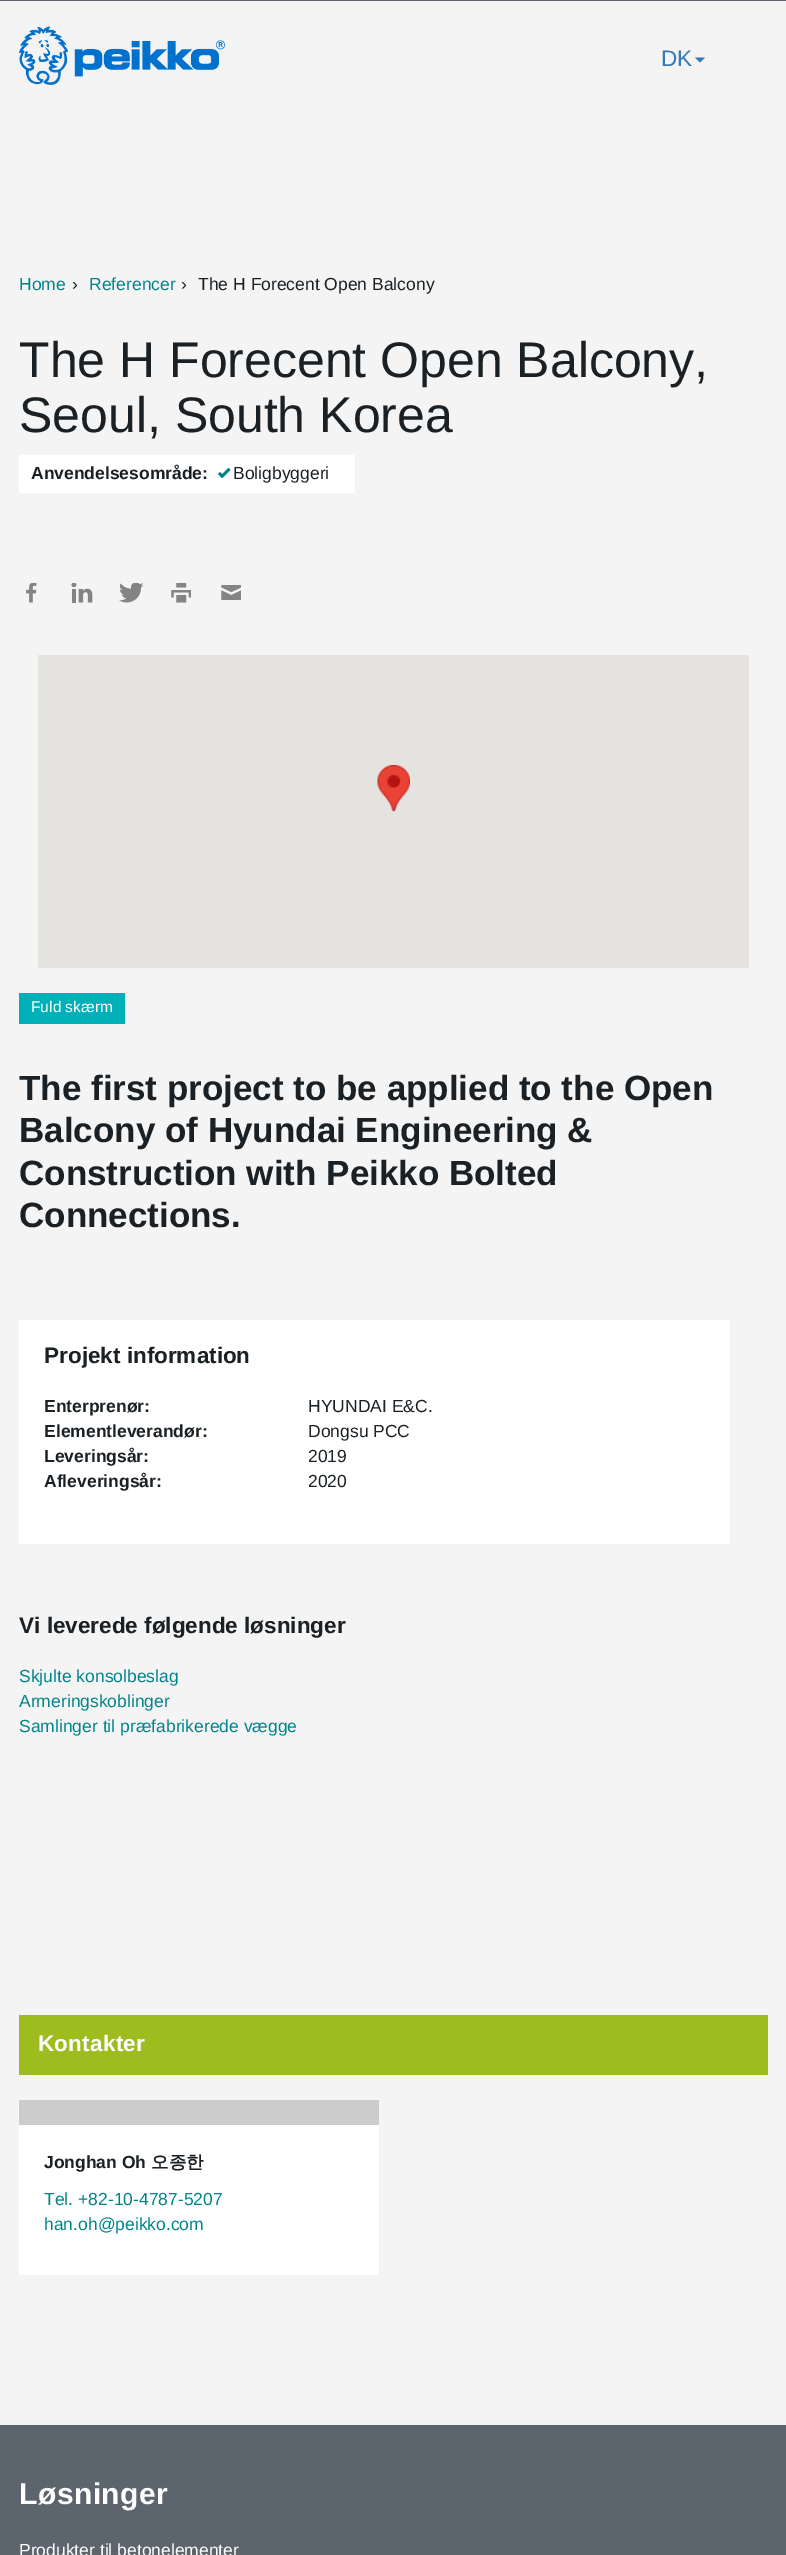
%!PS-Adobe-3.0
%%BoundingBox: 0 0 786 2555
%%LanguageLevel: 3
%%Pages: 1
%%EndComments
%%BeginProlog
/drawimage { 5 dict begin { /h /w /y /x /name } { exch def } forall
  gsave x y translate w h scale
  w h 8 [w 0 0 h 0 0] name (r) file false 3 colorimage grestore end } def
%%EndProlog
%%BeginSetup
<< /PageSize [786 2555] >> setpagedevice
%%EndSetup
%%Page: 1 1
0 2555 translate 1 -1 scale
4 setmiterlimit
0.957 setgray
0 0 786 2555 rectfill
0.361 0.396 0.427 setrgbcolor
0 0 786 1 rectfill
(images/1.raw) 18 26 207 59 drawimage
0.2 0.478 0.718 setrgbcolor
newpath 695 57.5 moveto 705 57.5 lineto 700 62.5 lineto closepath fill
1 setgray
19 455 336 38 rectfill
(images/2.raw) 218 467 13 12 drawimage
(images/3.raw) 26 583 11 20 drawimage
(images/4.raw) 71 583 22 20 drawimage
(images/5.raw) 119 583 25 20 drawimage
(images/6.raw) 171 583 20 20 drawimage
(images/7.raw) 221 585 20 15 drawimage
0.898 0.89 0.875 setrgbcolor
38 655 711 313 rectfill
(images/8.raw) 377 765 33 47 drawimage
0 0.69 0.725 setrgbcolor
19 993 106 31 rectfill
1 setgray
19 1320 711 224 rectfill
0.612 0.741 0.114 setrgbcolor
19 2015 749 60 rectfill
1 setgray
19 2125 360 150 rectfill
0.8 setgray
19 2100 360 25 rectfill
0.361 0.396 0.427 setrgbcolor
0 2425 786 130 rectfill
/LiberationSans-Regular [22.5 0 0 -22.5 0 0] selectfont
0.2 0.478 0.718 setrgbcolor
661 66 moveto (DK) show
/LiberationSans-Regular [17.5 0 0 -17.5 0 0] selectfont
0 0.518 0.545 setrgbcolor
19 290 moveto (Home) show
0.102 0.125 0.141 setrgbcolor
72 290 moveto (›) show
0 0.518 0.545 setrgbcolor
89 290 moveto (Referencer) show
0.102 0.125 0.141 setrgbcolor
181 290 moveto (›) show
198 290 moveto (The H Forecent Open Balcony) show
/LiberationSans-Regular [50 0 0 -50 0 0] selectfont
19 377 moveto (The H Forecent Open Balcony,) show
19 432 moveto (Seoul, South Korea) show
/LiberationSans-Bold [17.5 0 0 -17.5 0 0] selectfont
31 479 moveto (Anvendelsesområde:) show
/LiberationSans-Regular [17.5 0 0 -17.5 0 0] selectfont
233 479 moveto (Boligbyggeri) show
/LiberationSans-Regular [15.5 0 0 -15.5 0 0] selectfont
1 setgray
31 1012 moveto (Fuld skærm) show
/LiberationSans-Bold [35 0 0 -35 0 0] selectfont
0.102 0.125 0.141 setrgbcolor
19 1100 moveto (The first project to be applied to the Open) show
19 1142 moveto (Balcony of Hyundai Engineering &) show
19 1185 moveto (Construction with Peikko Bolted) show
19 1227 moveto (Connections.) show
/LiberationSans-Bold [22.5 0 0 -22.5 0 0] selectfont
44 1363 moveto (Projekt information) show
/LiberationSans-Bold [17.5 0 0 -17.5 0 0] selectfont
44 1412 moveto (Enterprenør:) show
/LiberationSans-Regular [17.5 0 0 -17.5 0 0] selectfont
308 1412 moveto (HYUNDAI E&C.) show
/LiberationSans-Bold [17.5 0 0 -17.5 0 0] selectfont
44 1437 moveto (Elementleverandør:) show
/LiberationSans-Regular [17.5 0 0 -17.5 0 0] selectfont
308 1437 moveto (Dongsu PCC) show
/LiberationSans-Bold [17.5 0 0 -17.5 0 0] selectfont
44 1462 moveto (Leveringsår:) show
/LiberationSans-Regular [17.5 0 0 -17.5 0 0] selectfont
308 1462 moveto (2019) show
/LiberationSans-Bold [17.5 0 0 -17.5 0 0] selectfont
44 1487 moveto (Afleveringsår:) show
/LiberationSans-Regular [17.5 0 0 -17.5 0 0] selectfont
308 1487 moveto (2020) show
/LiberationSans-Bold [22.5 0 0 -22.5 0 0] selectfont
19 1633 moveto (Vi leverede følgende løsninger) show
/LiberationSans-Regular [17.5 0 0 -17.5 0 0] selectfont
0 0.518 0.545 setrgbcolor
19 1682 moveto (Skjulte konsolbeslag) show
19 1707 moveto (Armeringskoblinger) show
19 1732 moveto (Samlinger til præfabrikerede vægge) show
/LiberationSans-Bold [22.5 0 0 -22.5 0 0] selectfont
1 setgray
38 2051 moveto 0.25 0 (Kontakter) ashow
/LiberationSans-Bold [17.5 0 0 -17.5 0 0] selectfont
0.102 0.125 0.141 setrgbcolor
44 2168 moveto (Jonghan Oh) show
/WenQuanYiZenHei-Bold [17.5 0 0 -17.5 0 0] selectfont
151 2168 moveto (오종한) show
/LiberationSans-Regular [17.5 0 0 -17.5 0 0] selectfont
0 0.518 0.545 setrgbcolor
44 2205 moveto (Tel. +82-10-4787-5207) show
44 2230 moveto (han.oh@peikko.com) show
/LiberationSans-Bold [30 0 0 -30 0 0] selectfont
1 setgray
19 2504 moveto 0.5 0 (Løsninger) ashow
/LiberationSans-Regular [17.5 0 0 -17.5 0 0] selectfont
19 2556 moveto (Produkter til betonelementer) show
showpage
%%EOF
